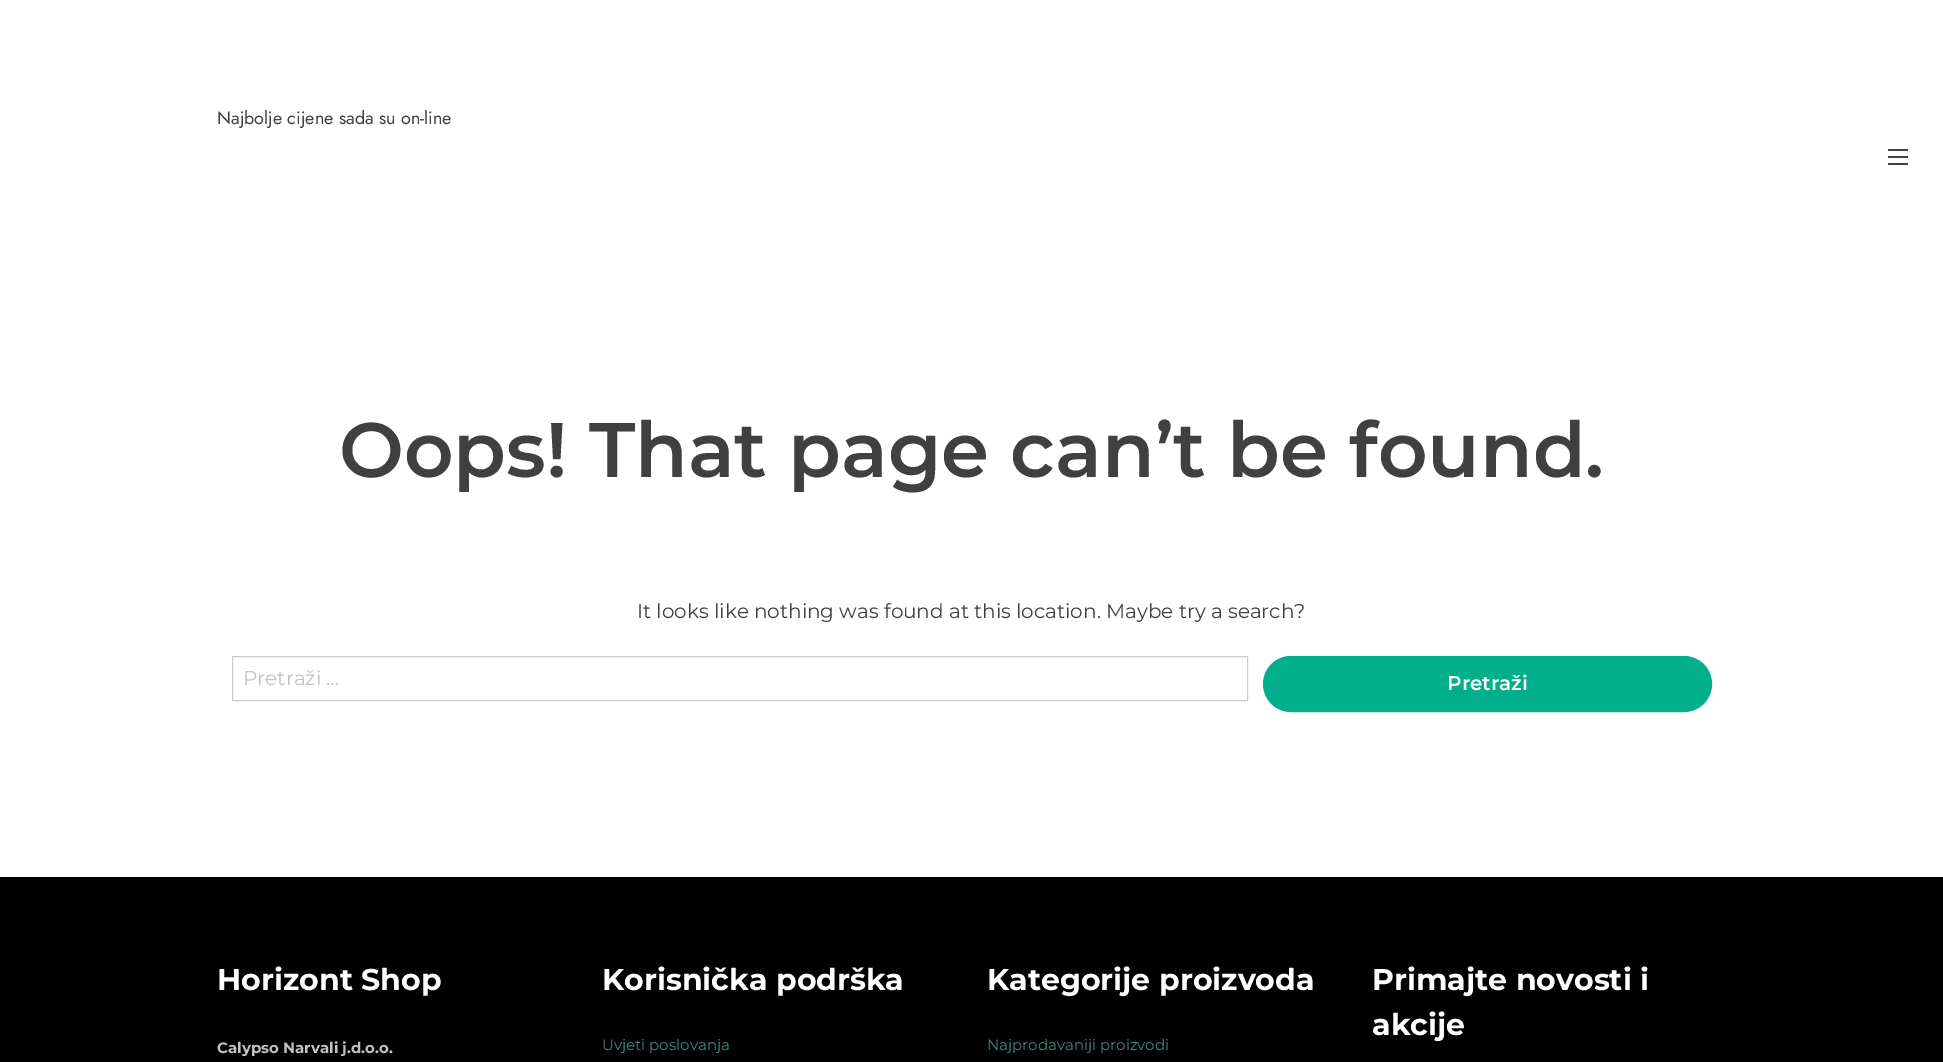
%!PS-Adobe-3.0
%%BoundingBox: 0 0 1943 1062
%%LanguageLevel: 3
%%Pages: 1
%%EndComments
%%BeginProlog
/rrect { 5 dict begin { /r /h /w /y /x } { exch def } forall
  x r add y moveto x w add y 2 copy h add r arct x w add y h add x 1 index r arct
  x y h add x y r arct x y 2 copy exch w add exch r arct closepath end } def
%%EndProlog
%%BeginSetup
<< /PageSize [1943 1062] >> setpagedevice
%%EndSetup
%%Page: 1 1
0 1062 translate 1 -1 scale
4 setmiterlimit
1 setgray
0 0 1943 1062 rectfill
0.251 setgray
1888 149 20 2 1 rrect fill
1888 156 20 2 1 rrect fill
1888 163 20 2 1 rrect fill
0.8 setgray
232.5 656.5 1015 44 rectstroke
0.004 0.686 0.553 setrgbcolor
1263.5 656.5 448 55 27.5 rrect gsave fill grestore
stroke
0 setgray
0 877 1943 185 rectfill
/Jost-Regular [18 0 0 -18 0 0] selectfont
0.251 setgray
217 124 moveto (Najbolje cijene sada su on-line) show
/Montserrat-SemiBold [77 0 0 -77 0 0] selectfont
339 477 moveto (Oops! That page can’t be found.) show
/Montserrat-Regular [20 0 0 -20 0 0] selectfont
637 618 moveto (It looks like nothing was found at this location. Maybe try a search?) show
0.761 setgray
243 685 moveto (Pretraži …) show
/Montserrat-SemiBold [20 0 0 -20 0 0] selectfont
1 setgray
1447 690 moveto (Pretraži) show
/Montserrat-Bold [30 0 0 -30 0 0] selectfont
217 990 moveto (Horizont Shop) show
/Montserrat-Bold [15 0 0 -15 0 0] selectfont
0.761 setgray
217 1053 moveto (Calypso Narvali j.d.o.o.) show
/Montserrat-Bold [30 0 0 -30 0 0] selectfont
1 setgray
602 990 moveto (Korisnička podrška) show
/Montserrat-Regular [15 0 0 -15 0 0] selectfont
0.267 0.541 0.522 setrgbcolor
602 1050 moveto (Uvjeti poslovanja) show
/Montserrat-Bold [30 0 0 -30 0 0] selectfont
1 setgray
987 990 moveto (Kategorije proizvoda) show
/Montserrat-Regular [15 0 0 -15 0 0] selectfont
0.267 0.541 0.522 setrgbcolor
987 1050 moveto (Najprodavaniji proizvodi) show
/Montserrat-Bold [30 0 0 -30 0 0] selectfont
1 setgray
1372 990 moveto (Primajte novosti i) show
1372 1035 moveto (akcije) show
showpage
%%EOF
